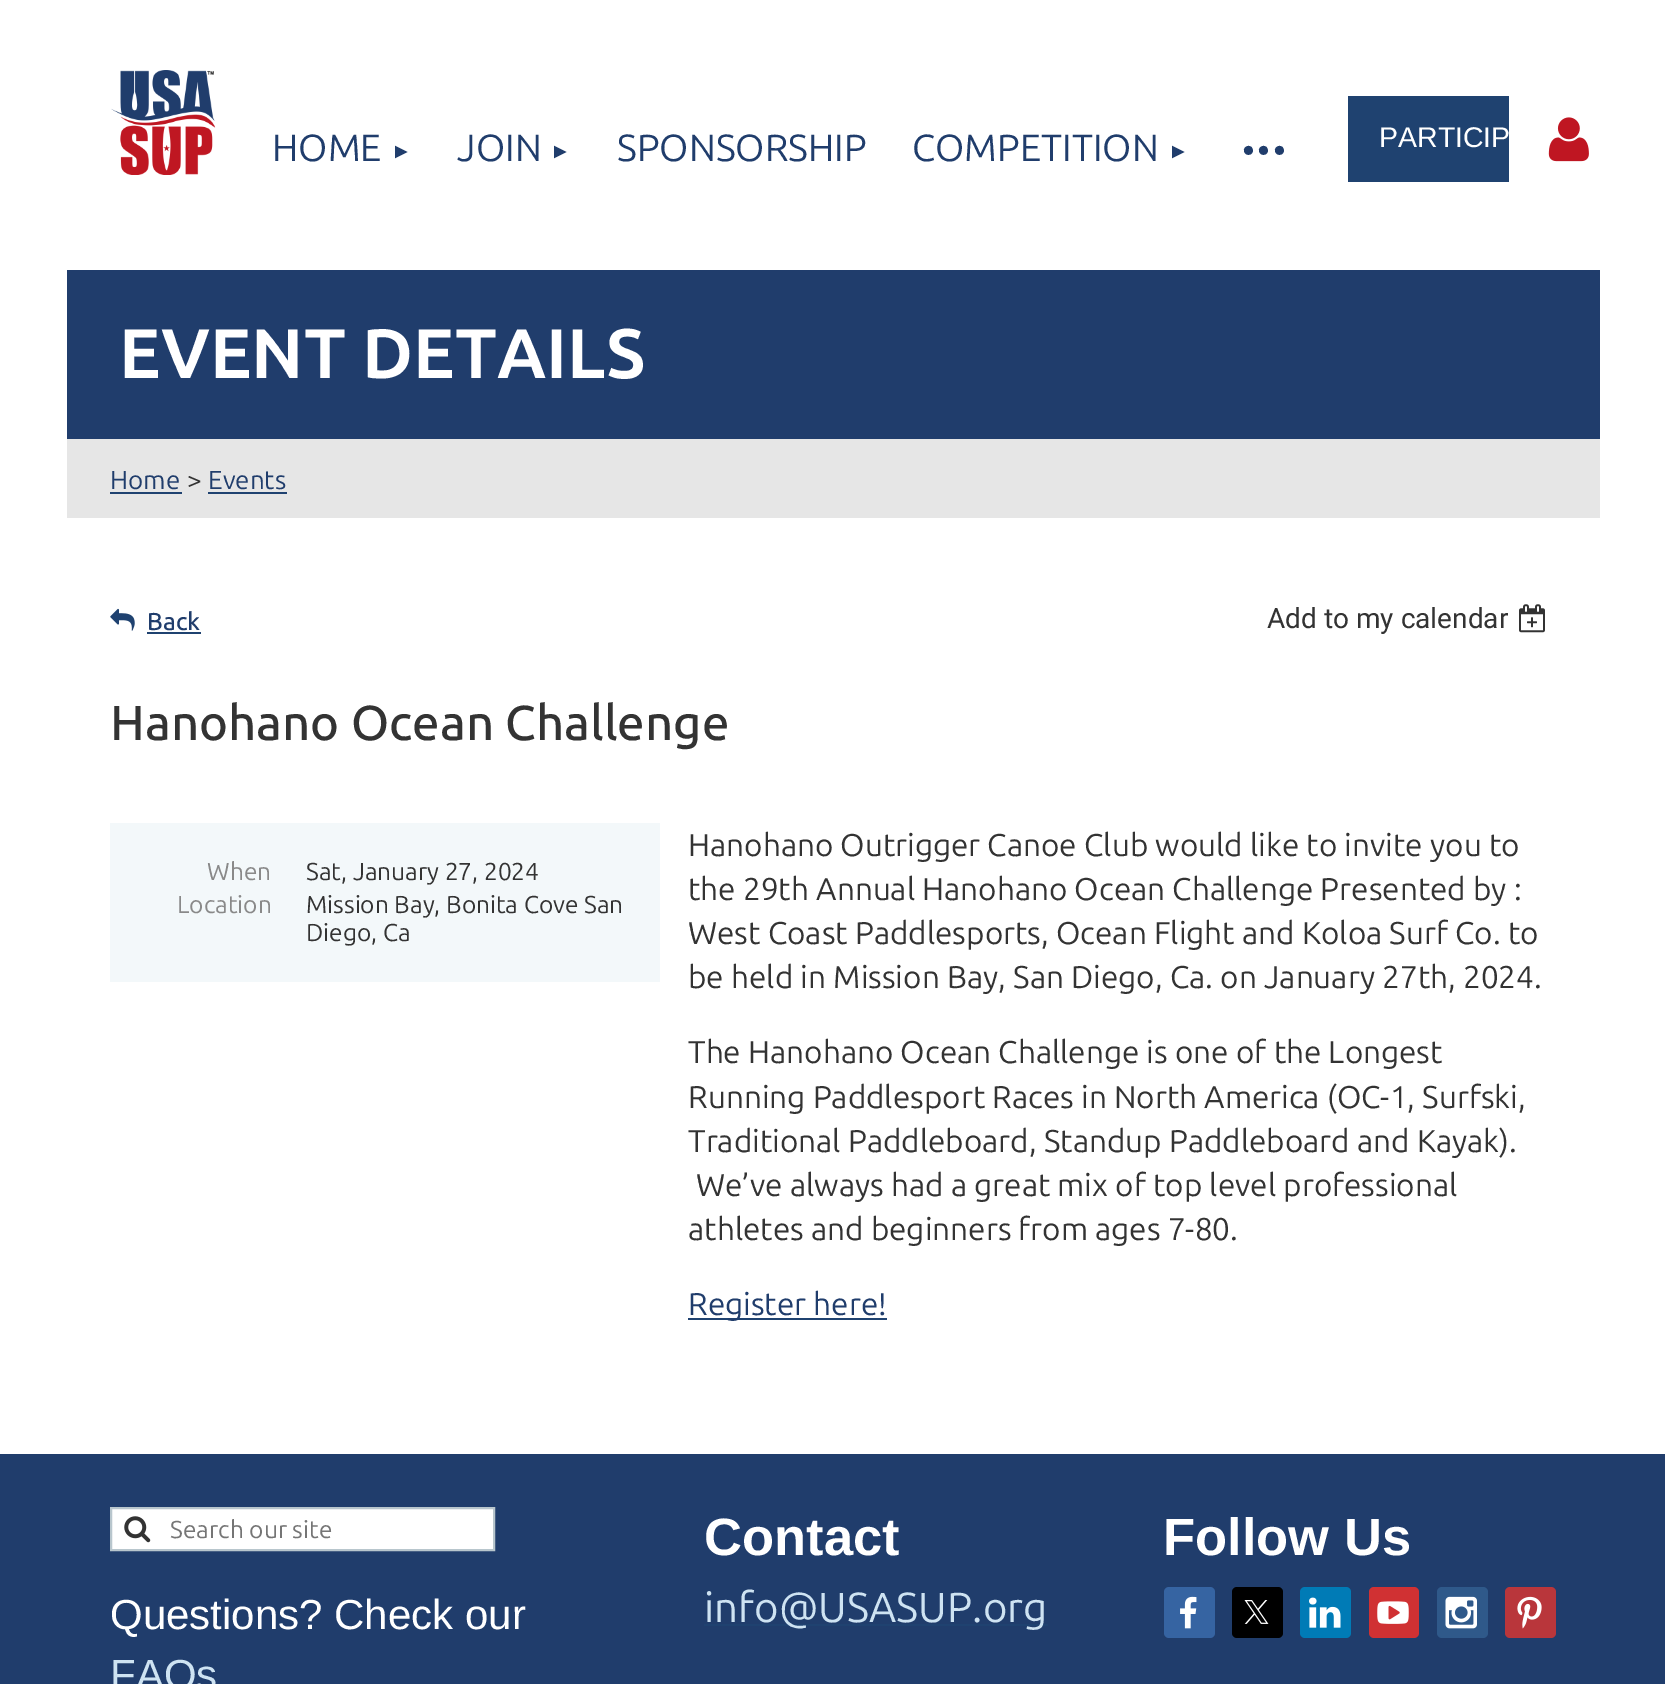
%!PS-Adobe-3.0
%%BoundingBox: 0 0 1665 1684
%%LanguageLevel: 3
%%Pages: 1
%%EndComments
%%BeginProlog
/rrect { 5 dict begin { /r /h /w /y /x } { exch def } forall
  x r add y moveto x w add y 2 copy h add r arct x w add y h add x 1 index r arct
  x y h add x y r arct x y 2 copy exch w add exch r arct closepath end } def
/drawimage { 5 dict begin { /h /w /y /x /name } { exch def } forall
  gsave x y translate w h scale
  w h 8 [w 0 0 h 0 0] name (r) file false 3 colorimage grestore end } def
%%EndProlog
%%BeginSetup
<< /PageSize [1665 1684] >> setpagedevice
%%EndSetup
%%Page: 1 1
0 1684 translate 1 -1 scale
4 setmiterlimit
1 setgray
0 0 1665 1684 rectfill
(images/1.raw) 111 70 105 105 drawimage
0.122 0.259 0.439 setrgbcolor
1348 96 161 86 rectfill
(images/2.raw) 1548 117 41 45 drawimage
0.125 0.239 0.424 setrgbcolor
67 270 1533 169 rectfill
0.902 setgray
67 439 1533 79 rectfill
0.122 0.259 0.439 setrgbcolor
110 492 72 2 rectfill
208 492 79 2 rectfill
(images/3.raw) 110 608 25 23 drawimage
147 632 54 2 rectfill
(images/4.raw) 1519 604 26 29 drawimage
0.953 0.973 0.98 setrgbcolor
110 823 550 159 rectfill
0.122 0.259 0.439 setrgbcolor
688 1318 199 2 rectfill
0.125 0.239 0.424 setrgbcolor
0 1454 1665 230 rectfill
1 setgray
newpath 111 1508 moveto 494 1508 lineto 494 1550 lineto 111 1550 lineto closepath gsave fill grestore
0.722 0.776 0.804 setrgbcolor
2 setlinewidth
stroke
(images/5.raw) 124 1516 27 27 drawimage
0.122 0.259 0.439 setrgbcolor
704 1624 344 2 rectfill
0.212 0.392 0.635 setrgbcolor
1164 1587 51 51 5 rrect fill
(images/6.raw) 1180 1596 17 33 drawimage
0 setgray
1232 1587 51 51 5 rrect fill
(images/7.raw) 1244 1600 25 24 drawimage
0 0.482 0.714 setrgbcolor
1300 1587 51 51 5 rrect fill
(images/8.raw) 1309 1597 32 31 drawimage
0.816 0.192 0.2 setrgbcolor
1369 1587 50 51 5 rrect fill
(images/9.raw) 1377 1601 32 23 drawimage
0.184 0.349 0.541 setrgbcolor
1437 1587 51 51 5 rrect fill
(images/10.raw) 1445 1596 32 33 drawimage
0.725 0.212 0.231 setrgbcolor
1505 1587 51 51 5 rrect fill
(images/11.raw) 1517 1596 25 33 drawimage
/Ubuntu-Regular [37.75 0 0 -37.75 0 0] selectfont
0.125 0.239 0.424 setrgbcolor
272 161 moveto (HOME) show
/LiberationSans-Regular [21 0 0 -21 0 0] selectfont
391 158 moveto (►) show
/Ubuntu-Regular [37.75 0 0 -37.75 0 0] selectfont
457 161 moveto (JOIN) show
/LiberationSans-Regular [21 0 0 -21 0 0] selectfont
550 158 moveto (►) show
/Ubuntu-Regular [37.75 0 0 -37.75 0 0] selectfont
617 161 moveto (SPONSORSHIP) show
912 161 moveto (COMPETITION) show
/LiberationSans-Regular [21 0 0 -21 0 0] selectfont
1168 158 moveto (►) show
/Ubuntu-Regular [77 0 0 -77 0 0] selectfont
1239 173 moveto -3.5 0 (···) ashow
/LiberationSans-Regular [28.5 0 0 -28.5 0 0] selectfont
1 setgray
1379 147 moveto (PARTICIP) show
/Ubuntu-Bold [70 0 0 -70 0 0] selectfont
119 378 moveto (EVENT DETAILS) show
/Ubuntu-Regular [26 0 0 -26 0 0] selectfont
0.125 0.239 0.424 setrgbcolor
110 489 moveto (Home) show
0.2 setgray
187 489 moveto (>) show
0.125 0.239 0.424 setrgbcolor
208 489 moveto (Events) show
/Ubuntu-Medium [24.5 0 0 -24.5 0 0] selectfont
147 630 moveto (Back) show
/Roboto-Regular [28 0 0 -28 0 0] selectfont
0.2 setgray
1267 628 moveto (Add to my calendar) show
/Ubuntu-Medium [49 0 0 -49 0 0] selectfont
110 740 moveto (Hanohano Ocean Challenge) show
/Ubuntu-Regular [24.5 0 0 -24.5 0 0] selectfont
0.537 setgray
207 880 moveto (When) show
0.2 setgray
306 880 moveto (Sat, January 27, 2024) show
0.537 setgray
177 913 moveto (Location) show
0.2 setgray
306 913 moveto (Mission Bay, Bonita Cove San) show
306 941 moveto (Diego, Ca) show
/Ubuntu-Regular [31.5 0 0 -31.5 0 0] selectfont
688 856 moveto (Hanohano Outrigger Canoe Club would like to invite you to) show
688 900 moveto (the 29th Annual Hanohano Ocean Challenge Presented by :) show
688 944 moveto (West Coast Paddlesports, Ocean Flight and Koloa Surf Co. to) show
688 988 moveto (be held in Mission Bay, San Diego, Ca. on January 27th, 2024.) show
688 1063 moveto (The Hanohano Ocean Challenge is one of the Longest) show
688 1108 moveto (Running Paddlesport Races in North America \(OC-1, Surfski,) show
688 1152 moveto (Traditional Paddleboard, Standup Paddleboard and Kayak\).) show
696 1196 moveto (We’ve always had a great mix of top level professional) show
688 1240 moveto (athletes and beginners from ages 7-80.) show
0.125 0.239 0.424 setrgbcolor
688 1315 moveto (Register here!) show
/Ubuntu-Regular [24.5 0 0 -24.5 0 0] selectfont
0.459 setgray
170 1538 moveto (Search our site) show
/LiberationSans-Regular [42 0 0 -42 0 0] selectfont
1 setgray
110 1629 moveto (Questions? Check our) show
0.808 0.89 0.949 setrgbcolor
110 1689 moveto (FAQs) show
/LiberationSans-Bold [52.5 0 0 -52.5 0 0] selectfont
1 setgray
704 1555 moveto (Contact) show
/Ubuntu-Regular [42 0 0 -42 0 0] selectfont
0.808 0.89 0.949 setrgbcolor
704 1622 moveto (info@USASUP.org) show
/LiberationSans-Bold [52.5 0 0 -52.5 0 0] selectfont
1 setgray
1163 1555 moveto (Follow Us) show
showpage
%%EOF
